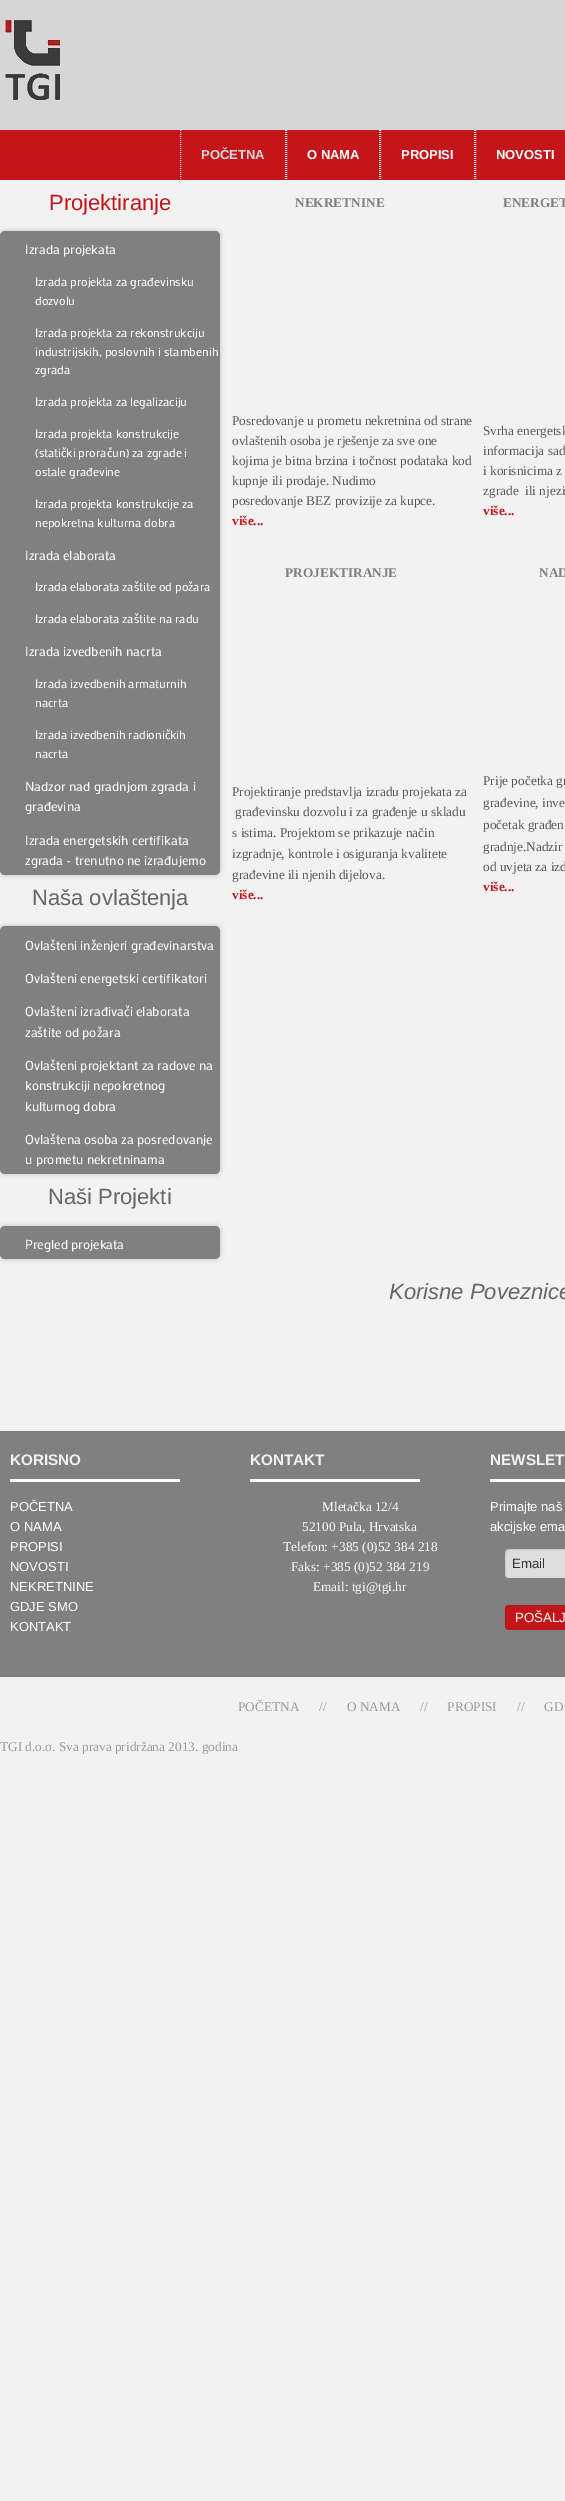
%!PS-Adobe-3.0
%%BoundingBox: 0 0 565 2501
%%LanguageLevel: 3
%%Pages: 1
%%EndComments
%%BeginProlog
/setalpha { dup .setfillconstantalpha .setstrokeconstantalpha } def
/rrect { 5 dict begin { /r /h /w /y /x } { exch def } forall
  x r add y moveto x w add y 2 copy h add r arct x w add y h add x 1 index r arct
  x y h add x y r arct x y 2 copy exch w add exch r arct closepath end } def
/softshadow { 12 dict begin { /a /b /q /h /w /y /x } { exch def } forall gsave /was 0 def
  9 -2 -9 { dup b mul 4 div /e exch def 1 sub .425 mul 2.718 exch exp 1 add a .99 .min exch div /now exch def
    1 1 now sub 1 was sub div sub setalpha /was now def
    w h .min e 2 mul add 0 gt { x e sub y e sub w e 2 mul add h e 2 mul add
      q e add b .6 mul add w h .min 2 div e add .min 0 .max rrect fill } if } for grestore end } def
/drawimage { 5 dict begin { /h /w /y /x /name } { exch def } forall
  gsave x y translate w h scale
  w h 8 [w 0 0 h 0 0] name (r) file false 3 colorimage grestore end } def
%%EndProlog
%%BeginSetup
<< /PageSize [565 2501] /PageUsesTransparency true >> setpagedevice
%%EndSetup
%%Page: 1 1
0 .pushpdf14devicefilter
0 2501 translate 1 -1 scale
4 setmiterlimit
0.949 setgray
0 0 565 2501 rectfill
0.839 setgray
0 0 565 130 rectfill
(images/1.raw) 3 18 58 82 drawimage
0.769 0.082 0.102 setrgbcolor
0 130 565 50 rectfill
0.945 setgray
[1 1] 0 setdash
newpath 285.5 130 moveto 285.5 180 lineto stroke
newpath 180.5 130 moveto 180.5 180 lineto stroke
newpath 379.5 130 moveto 379.5 180 lineto stroke
newpath 286.5 130 moveto 286.5 180 lineto stroke
newpath 474.5 130 moveto 474.5 180 lineto stroke
newpath 380.5 130 moveto 380.5 180 lineto stroke
newpath 475.5 130 moveto 475.5 180 lineto stroke
0.733 setgray
0 231 220 644 5 2.5 1 softshadow
0.502 setgray
0 231 220 644 5 rrect fill
0.733 setgray
0 926 220 248 5 2.5 1 softshadow
0.502 setgray
0 926 220 248 5 rrect fill
0.733 setgray
0 1226 220 33 5 2.5 1 softshadow
0.502 setgray
0 1226 220 33 5 rrect fill
0 1431 565 246 rectfill
0.98 setgray
10 1479 170 3 rectfill
250 1479 170 3 rectfill
490 1479 75 3 rectfill
0.867 setgray
505 1549 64 29 4 rrect fill
0.1 setalpha
0 setgray
newpath 510 1550 moveto 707 1550 lineto 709 1551 lineto 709 1550 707 1549 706 1549 curveto 509 1549 lineto 507 1549 505 1551 505 1553 curveto 505 1574 lineto 505 1575 506 1577 507 1577 curveto 505 1575 506 1568 506 1564 curveto 506 1561 504 1550 510 1550 curveto closepath fill
1 setalpha
0.769 0.082 0.102 setrgbcolor
505 1605 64 25 4 rrect fill
0.1 setalpha
0 setgray
newpath 510 1606 moveto 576 1606 lineto 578 1607 lineto 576 1603 565 1605 564 1605 curveto 520 1605 lineto 502 1605 505 1604 505 1620 curveto 505 1623 504 1628 507 1629 curveto 505 1627 506 1621 506 1618 curveto 506 1615 504 1606 510 1606 curveto closepath fill
/LiberationSans-Bold [13 0 0 -13 0 0] selectfont
1 setalpha
0.839 setgray
201 159 moveto (POČETNA) show
1 setgray
307 159 moveto (O NAMA) show
401 159 moveto (PROPISI) show
496 159 moveto (NOVOSTI) show
/LiberationSans-Regular [22 0 0 -22 0 0] selectfont
0.769 0.082 0.102 setrgbcolor
49 210 moveto (Projektiranje) show
/Mako-Regular [13 0 0 -13 0 0] selectfont
1 setgray
25 254 moveto (Izrada projekata) show
/Mako-Regular [12 0 0 -12 0 0] selectfont
35 286 moveto (Izrada projekta za građevinsku) show
35 305 moveto (dozvolu) show
35 337 moveto (Izrada projekta za rekonstrukciju) show
35 356 moveto (industrijskih, poslovnih i stambenih) show
35 374 moveto (zgrada) show
35 406 moveto (Izrada projekta za legalizaciju) show
35 438 moveto (Izrada projekta konstrukcije) show
35 457 moveto (\(statički proračun\) za zgrade i) show
35 476 moveto (ostale građevine) show
35 508 moveto (Izrada projekta konstrukcije za) show
35 527 moveto (nepokretna kulturna dobra) show
/Mako-Regular [13 0 0 -13 0 0] selectfont
25 560 moveto (Izrada elaborata) show
/Mako-Regular [12 0 0 -12 0 0] selectfont
35 591 moveto (Izrada elaborata zaštite od požara) show
35 623 moveto (Izrada elaborata zaštite na radu) show
/Mako-Regular [13 0 0 -13 0 0] selectfont
25 656 moveto (Izrada izvedbenih nacrta) show
/Mako-Regular [12 0 0 -12 0 0] selectfont
35 688 moveto (Izrada izvedbenih armaturnih) show
35 707 moveto (nacrta) show
35 739 moveto (Izrada izvedbenih radioničkih) show
35 758 moveto (nacrta) show
/Mako-Regular [13 0 0 -13 0 0] selectfont
25 791 moveto (Nadzor nad gradnjom zgrada i) show
25 811 moveto (građevina) show
25 845 moveto (Izrada energetskih certifikata) show
25 865 moveto (zgrada - trenutno ne izrađujemo) show
/LiberationSans-Regular [22 0 0 -22 0 0] selectfont
0.4 setgray
32 905 moveto (Naša ovlaštenja) show
/Mako-Regular [13 0 0 -13 0 0] selectfont
1 setgray
25 950 moveto (Ovlašteni inženjeri građevinarstva) show
25 983 moveto (Ovlašteni energetski certifikatori) show
25 1016 moveto (Ovlašteni izrađivači elaborata) show
25 1037 moveto (zaštite od požara) show
25 1070 moveto (Ovlašteni projektant za radove na) show
25 1090 moveto (konstrukciji nepokretnog) show
25 1111 moveto (kulturnog dobra) show
25 1144 moveto (Ovlaštena osoba za posredovanje) show
25 1164 moveto (u prometu nekretninama) show
/LiberationSans-Regular [22 0 0 -22 0 0] selectfont
0.4 setgray
48 1204 moveto (Naši Projekti) show
/Mako-Regular [13 0 0 -13 0 0] selectfont
1 setgray
25 1249 moveto (Pregled projekata) show
/LiberationSerif-Bold [13.3 0 0 -13.3 0 0] selectfont
0.502 setgray
295 207 moveto (NEKRETNINE) show
503 207 moveto (ENERGET) show
/LiberationSerif-Regular [13.3 0 0 -13.3 0 0] selectfont
0.341 setgray
232 425 moveto (Posredovanje u prometu nekretnina od strane) show
232 445 moveto (ovlaštenih osoba je rješenje za sve one) show
232 465 moveto (kojima je bitna brzina i točnost podataka kod) show
232 485 moveto (kupnje ili prodaje. Nudimo) show
232 505 moveto (posredovanje BEZ provizije za kupce.) show
/LiberationSerif-Bold [13.3 0 0 -13.3 0 0] selectfont
0.769 0.082 0.102 setrgbcolor
232 525 moveto (više...) show
/LiberationSerif-Regular [13.3 0 0 -13.3 0 0] selectfont
0.341 setgray
483 435 moveto (Svrha energetsk) show
483 455 moveto (informacija sad) show
483 475 moveto (i korisnicima z) show
483 495 moveto (zgrade  ili njezi) show
/LiberationSerif-Bold [13.3 0 0 -13.3 0 0] selectfont
0.769 0.082 0.102 setrgbcolor
483 515 moveto (više...) show
0.502 setgray
285 577 moveto (PROJEKTIRANJE) show
539 577 moveto (NAD) show
/LiberationSerif-Regular [13.3 0 0 -13.3 0 0] selectfont
0.341 setgray
232 796 moveto (Projektiranje predstavlja izradu projekata za) show
235 816 moveto (građevinsku dozvolu i za građenje u skladu) show
232 837 moveto (s istima. Projektom se prikazuje način) show
232 858 moveto (izgradnje, kontrole i osiguranja kvalitete) show
232 879 moveto (građevine ili njenih dijelova.) show
/LiberationSerif-Bold [13.3 0 0 -13.3 0 0] selectfont
0.769 0.082 0.102 setrgbcolor
232 899 moveto (više...) show
/LiberationSerif-Regular [13.3 0 0 -13.3 0 0] selectfont
0.341 setgray
483 785 moveto (Prije početka gr) show
483 807 moveto (građevine, inve) show
483 829 moveto (početak građen) show
483 851 moveto (gradnje.Nadzir) show
483 871 moveto (od uvjeta za izd) show
/LiberationSerif-Bold [13.3 0 0 -13.3 0 0] selectfont
0.769 0.082 0.102 setrgbcolor
483 891 moveto (više...) show
/LiberationSans-Italic [22 0 0 -22 0 0] selectfont
0.4 setgray
389 1299 moveto (Korisne Poveznice) show
/LiberationSans-Bold [15.25 0 0 -15.25 0 0] selectfont
0.949 setgray
10 1465 moveto (KORISNO) show
/LiberationSans-Regular [13 0 0 -13 0 0] selectfont
1 setgray
10 1511 moveto (POČETNA) show
10 1531 moveto (O NAMA) show
10 1551 moveto (PROPISI) show
10 1571 moveto (NOVOSTI) show
10 1591 moveto (NEKRETNINE) show
10 1611 moveto (GDJE SMO) show
10 1631 moveto (KONTAKT) show
/LiberationSans-Bold [15.25 0 0 -15.25 0 0] selectfont
0.949 setgray
250 1465 moveto (KONTAKT) show
/LiberationSerif-Regular [13.3 0 0 -13.3 0 0] selectfont
1 setgray
322 1511 moveto (Mletačka 12/4) show
302 1531 moveto (52100 Pula, Hrvatska) show
283 1551 moveto (Telefon: +385 \(0\)52 384 218) show
291 1571 moveto (Faks: +385 \(0\)52 384 219) show
313 1591 moveto (Email: tgi@tgi.hr) show
/LiberationSans-Bold [15.25 0 0 -15.25 0 0] selectfont
0.949 setgray
490 1465 moveto (NEWSLET) show
/LiberationSans-Regular [13 0 0 -13 0 0] selectfont
1 setgray
490 1511 moveto (Primajte naš) show
490 1531 moveto (akcijske ema) show
/LiberationSans-Regular [13.3 0 0 -13.3 0 0] selectfont
0.2 setgray
512 1568 moveto (Email) show
1 setgray
515 1622 moveto (POŠALJ) show
/LiberationSerif-Regular [13.3 0 0 -13.3 0 0] selectfont
0.6 setgray
238 1711 moveto (POČETNA      //      O NAMA      //      PROPISI      //      GD) show
0 1751 moveto (TGI d.o.o. Sva prava pridržana 2013. godina) show
.poppdf14devicefilter showpage
%%EOF
